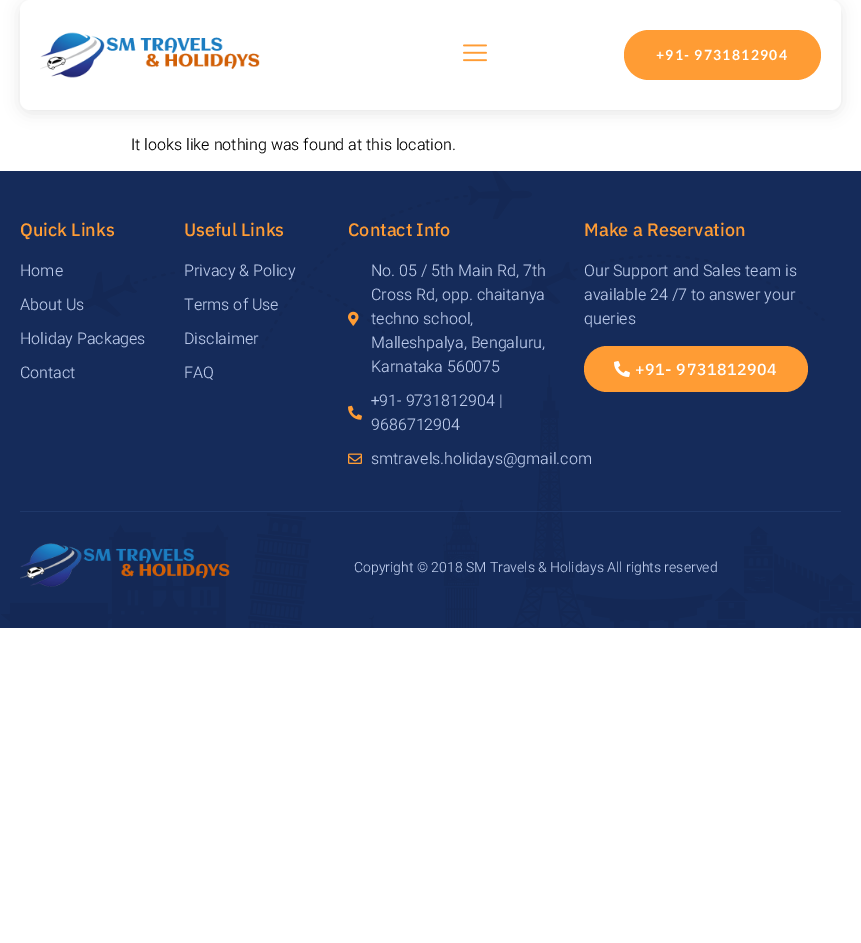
%!PS-Adobe-3.0
%%BoundingBox: 0 0 861 943
%%LanguageLevel: 3
%%Pages: 1
%%EndComments
%%BeginProlog
/setalpha { dup .setfillconstantalpha .setstrokeconstantalpha } def
/rrect { 5 dict begin { /r /h /w /y /x } { exch def } forall
  x r add y moveto x w add y 2 copy h add r arct x w add y h add x 1 index r arct
  x y h add x y r arct x y 2 copy exch w add exch r arct closepath end } def
/softshadow { 12 dict begin { /a /b /q /h /w /y /x } { exch def } forall gsave /was 0 def
  9 -2 -9 { dup b mul 4 div /e exch def 1 sub .425 mul 2.718 exch exp 1 add a .99 .min exch div /now exch def
    1 1 now sub 1 was sub div sub setalpha /was now def
    w h .min e 2 mul add 0 gt { x e sub y e sub w e 2 mul add h e 2 mul add
      q e add b .6 mul add w h .min 2 div e add .min 0 .max rrect fill } if } for grestore end } def
/drawimage { 5 dict begin { /h /w /y /x /name } { exch def } forall
  gsave x y translate w h scale
  w h 8 [w 0 0 h 0 0] name (r) file false 3 colorimage grestore end } def
%%EndProlog
%%BeginSetup
<< /PageSize [861 943] /PageUsesTransparency true >> setpagedevice
%%EndSetup
%%Page: 1 1
0 .pushpdf14devicefilter
0 943 translate 1 -1 scale
4 setmiterlimit
1 setgray
0 0 861 943 rectfill
0 setgray
20 3 821 110 10 7.5 0.1 softshadow
1 setgray
20 0 821 110 10 rrect fill
(images/1.raw) 40 32 220 46 drawimage
(images/2.raw) 463 44 24 18 drawimage
1 0.612 0.204 setrgbcolor
624 30 197 50 25 rrect fill
0.082 0.169 0.353 setrgbcolor
0 171 861 457 rectfill
(images/3.raw) 1 171 859 457 drawimage
(images/4.raw) 348 311 11 15 drawimage
(images/5.raw) 348 405 14 15 drawimage
(images/6.raw) 348 453 14 11 drawimage
1 0.612 0.204 setrgbcolor
584 346 224 46 23 rrect fill
(images/7.raw) 614 361 16 16 drawimage
0.122 0.22 0.416 setrgbcolor
20 511 821 1 rectfill
(images/8.raw) 20 543 210 44 drawimage
/Lato-Bold [14 0 0 -14 0 0] selectfont
1 setgray
656 60 moveto 1.25 0 (+91- 9731812904) ashow
/Heebo-Light [16 0 0 -16 0 0] selectfont
0 setgray
131 150 moveto (It looks like nothing was found at this location.) show
/IBMPlexSans-Medium [18 0 0 -18 0 0] selectfont
1 0.612 0.204 setrgbcolor
20 236 moveto (Quick Links) show
/Heebo-Light [16 0 0 -16 0 0] selectfont
0.733 0.792 0.918 setrgbcolor
20 276 moveto (Home) show
20 310 moveto (About Us) show
20 344 moveto (Holiday Packages) show
20 378 moveto (Contact) show
/IBMPlexSans-Medium [18 0 0 -18 0 0] selectfont
1 0.612 0.204 setrgbcolor
184 236 moveto (Useful Links) show
/Heebo-Light [16 0 0 -16 0 0] selectfont
0.733 0.792 0.918 setrgbcolor
184 276 moveto (Privacy & Policy) show
184 310 moveto (Terms of Use) show
184 344 moveto (Disclaimer) show
184 378 moveto (FAQ) show
/IBMPlexSans-Medium [18 0 0 -18 0 0] selectfont
1 0.612 0.204 setrgbcolor
348 236 moveto (Contact Info) show
/Heebo-Light [16 0 0 -16 0 0] selectfont
0.733 0.792 0.918 setrgbcolor
371 276 moveto (No. 05 / 5th Main Rd, 7th) show
371 300 moveto (Cross Rd, opp. chaitanya) show
371 324 moveto (techno school,) show
371 348 moveto (Malleshpalya, Bengaluru,) show
371 372 moveto (Karnataka 560075) show
371 406 moveto (+91- 9731812904 |) show
371 430 moveto (9686712904) show
371 464 moveto (smtravels.holidays@gmail.com) show
/IBMPlexSans-Medium [18 0 0 -18 0 0] selectfont
1 0.612 0.204 setrgbcolor
584 236 moveto (Make a Reservation) show
/Heebo-Light [16 0 0 -16 0 0] selectfont
0.733 0.792 0.918 setrgbcolor
584 276 moveto (Our Support and Sales team is) show
584 300 moveto (available 24 /7 to answer your) show
584 324 moveto (queries) show
/IBMPlexSans-Medium [16 0 0 -16 0 0] selectfont
1 setgray
635 375 moveto 0.5 0 (+91- 9731812904) ashow
/Heebo-Light [14 0 0 -14 0 0] selectfont
0.733 0.792 0.918 setrgbcolor
354 572 moveto (Copyright © 2018 SM Travels & Holidays All rights reserved) show
.poppdf14devicefilter showpage
%%EOF
